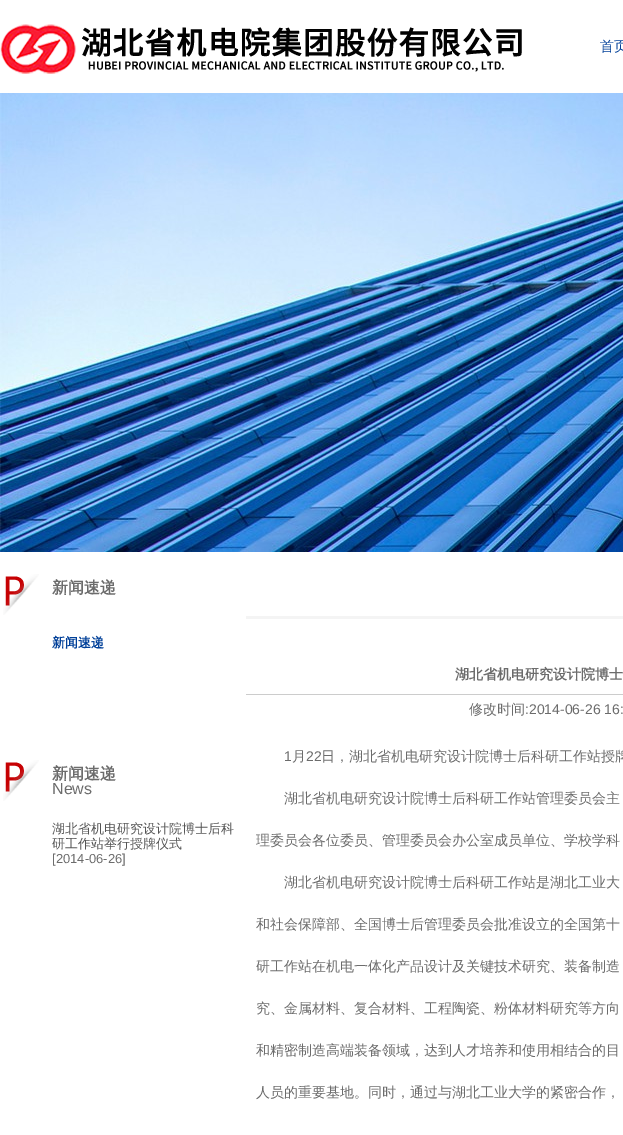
%!PS-Adobe-3.0
%%BoundingBox: 0 0 623 1135
%%LanguageLevel: 3
%%Pages: 1
%%EndComments
%%BeginProlog
/drawimage { 5 dict begin { /h /w /y /x /name } { exch def } forall
  gsave x y translate w h scale
  w h 8 [w 0 0 h 0 0] name (r) file false 3 colorimage grestore end } def
%%EndProlog
%%BeginSetup
<< /PageSize [623 1135] >> setpagedevice
%%EndSetup
%%Page: 1 1
0 1135 translate 1 -1 scale
4 setmiterlimit
1 setgray
0 0 623 1135 rectfill
(images/1.raw) 0 24 522 50 drawimage
(images/2.raw) 0 93 623 459 drawimage
(images/3.raw) 3 574 36 41 drawimage
(images/3.raw) 3 760 36 41 drawimage
0.957 setgray
246 616 377 3 rectfill
0.8 setgray
246 694 377 1 rectfill
/WenQuanYiZenHei-Medium [14 0 0 -14 0 0] selectfont
0.004 0.251 0.6 setrgbcolor
600 51 moveto (首页) show
/WenQuanYiZenHei-Bold [16 0 0 -16 0 0] selectfont
0.424 setgray
52 593 moveto (新闻速递) show
/WenQuanYiZenHei-Bold [13 0 0 -13 0 0] selectfont
0.004 0.251 0.6 setrgbcolor
52 647 moveto (新闻速递) show
/WenQuanYiZenHei-Bold [16 0 0 -16 0 0] selectfont
0.424 setgray
52 779 moveto (新闻速递) show
/LiberationSans-Regular [16 0 0 -16 0 0] selectfont
52 794 moveto (News) show
/WenQuanYiZenHei-Medium [13 0 0 -13 0 0] selectfont
0.333 setgray
52 833 moveto (湖北省机电研究设计院博士后科) show
52 848 moveto (研工作站举行授牌仪式) show
/LiberationSans-Regular [13 0 0 -13 0 0] selectfont
0.424 setgray
52 863 moveto ([2014-06-26]) show
/WenQuanYiZenHei-Bold [14 0 0 -14 0 0] selectfont
455 679 moveto (湖北省机电研究设计院博士) show
/WenQuanYiZenHei-Medium [14 0 0 -14 0 0] selectfont
469 714 moveto (修改时间) show
/LiberationSans-Regular [14 0 0 -14 0 0] selectfont
525 714 moveto (:2014-06-26 16:) show
284 761 moveto (1) show
/WenQuanYiZenHei-Medium [14 0 0 -14 0 0] selectfont
292 761 moveto (月) show
/LiberationSans-Regular [14 0 0 -14 0 0] selectfont
306 761 moveto (22) show
/WenQuanYiZenHei-Medium [14 0 0 -14 0 0] selectfont
321 761 moveto (日，湖北省机电研究设计院博士后科研工作站授牌) show
284 803 moveto (湖北省机电研究设计院博士后科研工作站管理委员会主) show
256 845 moveto (理委员会各位委员、管理委员会办公室成员单位、学校学科) show
284 887 moveto (湖北省机电研究设计院博士后科研工作站是湖北工业大) show
256 929 moveto (和社会保障部、全国博士后管理委员会批准设立的全国第十) show
256 971 moveto (研工作站在机电一体化产品设计及关键技术研究、装备制造) show
256 1013 moveto (究、金属材料、复合材料、工程陶瓷、粉体材料研究等方向) show
256 1055 moveto (和精密制造高端装备领域，达到人才培养和使用相结合的目) show
256 1097 moveto (人员的重要基地。同时，通过与湖北工业大学的紧密合作，) show
showpage
%%EOF
